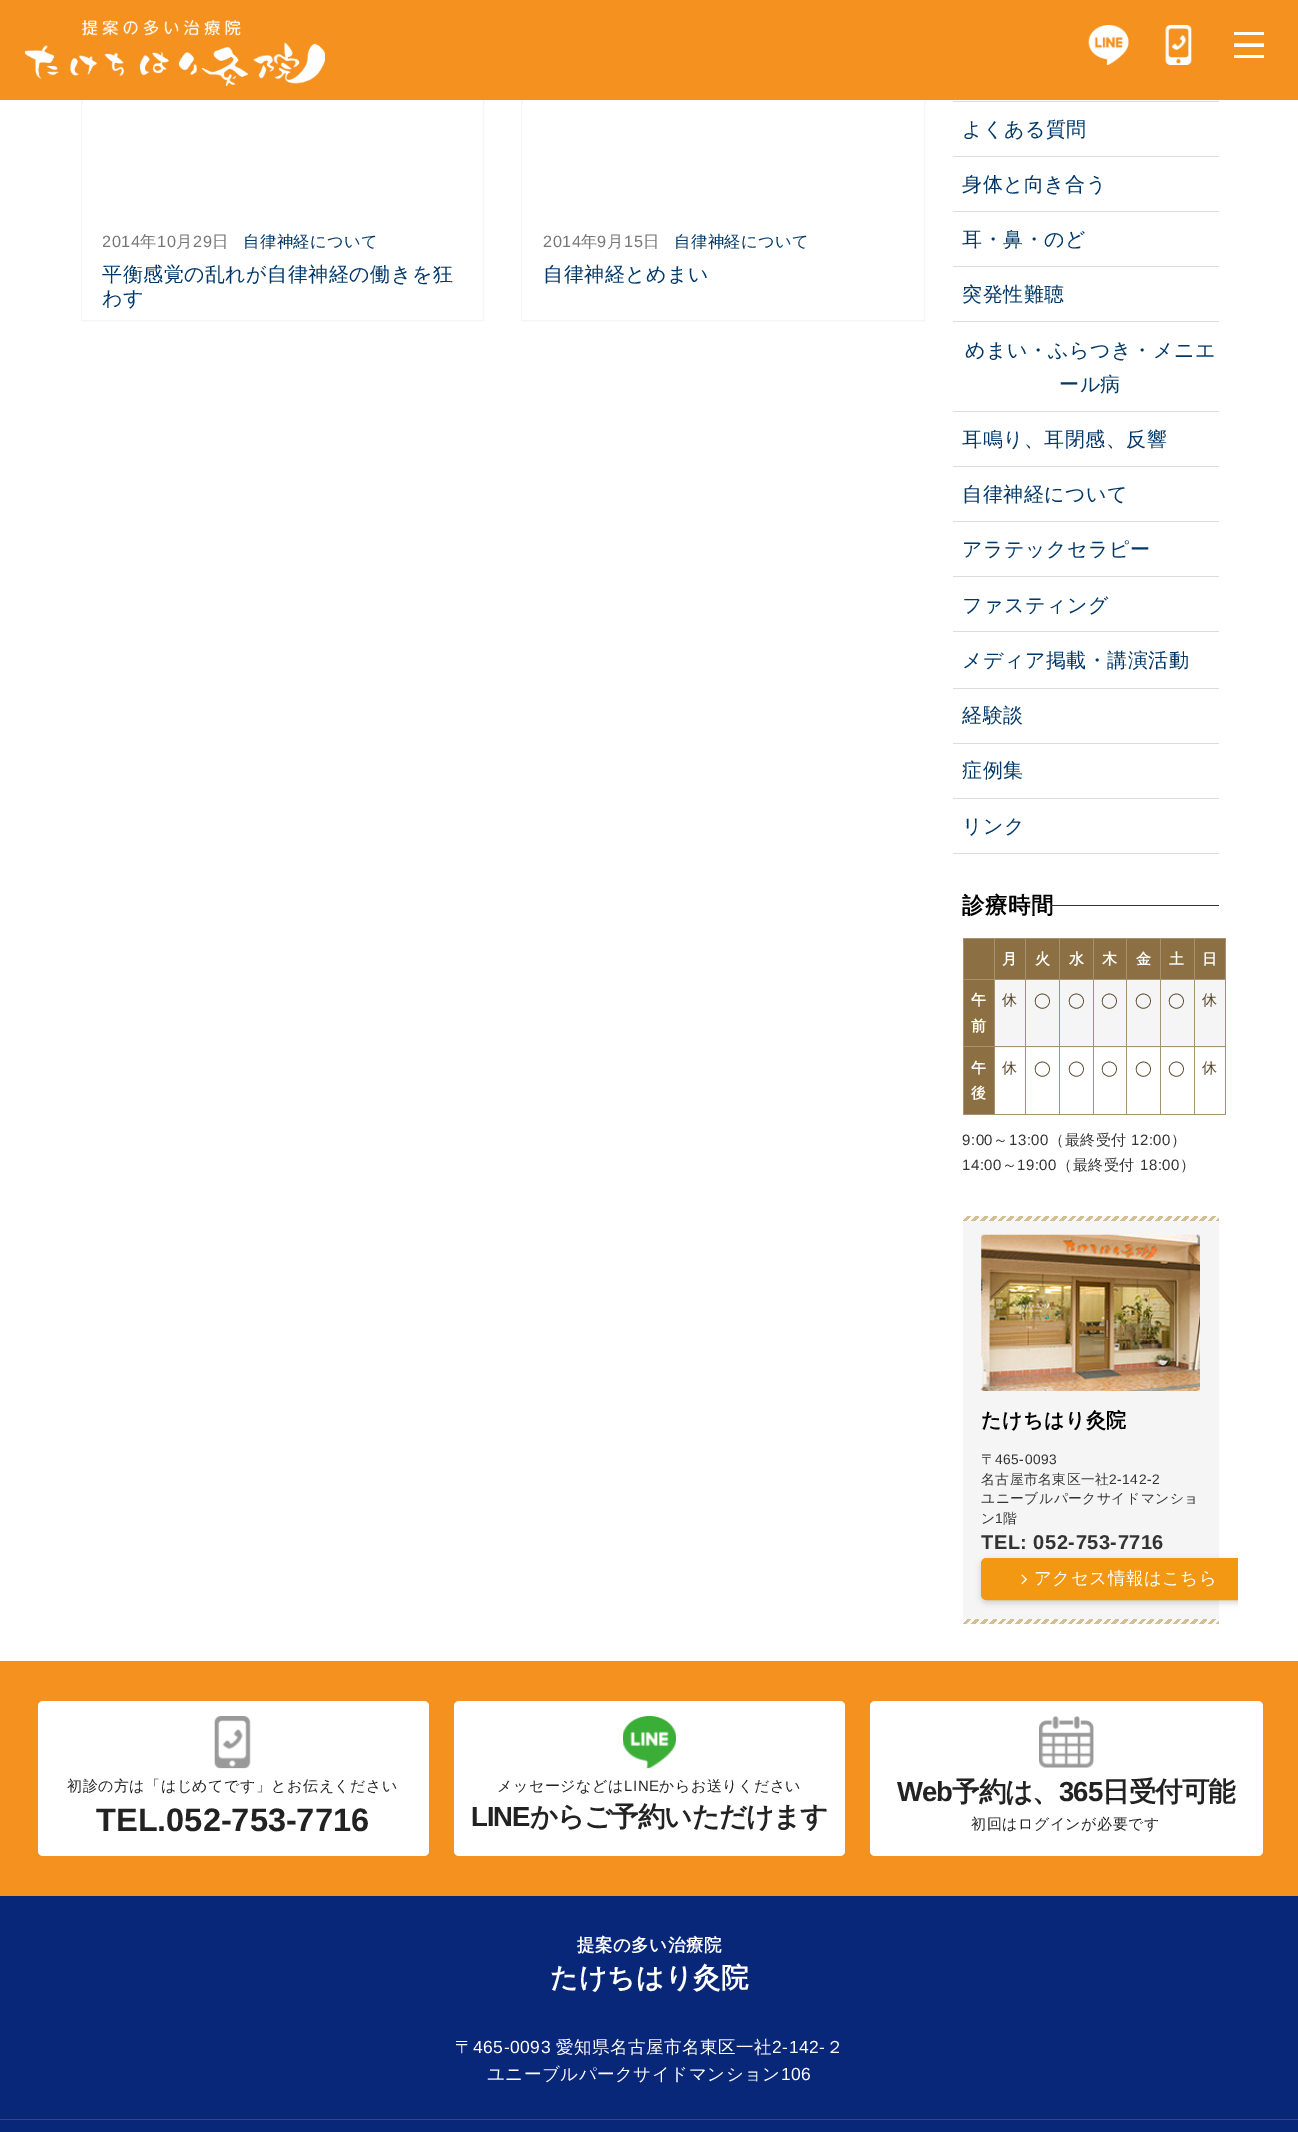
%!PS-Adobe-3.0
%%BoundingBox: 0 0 1298 2132
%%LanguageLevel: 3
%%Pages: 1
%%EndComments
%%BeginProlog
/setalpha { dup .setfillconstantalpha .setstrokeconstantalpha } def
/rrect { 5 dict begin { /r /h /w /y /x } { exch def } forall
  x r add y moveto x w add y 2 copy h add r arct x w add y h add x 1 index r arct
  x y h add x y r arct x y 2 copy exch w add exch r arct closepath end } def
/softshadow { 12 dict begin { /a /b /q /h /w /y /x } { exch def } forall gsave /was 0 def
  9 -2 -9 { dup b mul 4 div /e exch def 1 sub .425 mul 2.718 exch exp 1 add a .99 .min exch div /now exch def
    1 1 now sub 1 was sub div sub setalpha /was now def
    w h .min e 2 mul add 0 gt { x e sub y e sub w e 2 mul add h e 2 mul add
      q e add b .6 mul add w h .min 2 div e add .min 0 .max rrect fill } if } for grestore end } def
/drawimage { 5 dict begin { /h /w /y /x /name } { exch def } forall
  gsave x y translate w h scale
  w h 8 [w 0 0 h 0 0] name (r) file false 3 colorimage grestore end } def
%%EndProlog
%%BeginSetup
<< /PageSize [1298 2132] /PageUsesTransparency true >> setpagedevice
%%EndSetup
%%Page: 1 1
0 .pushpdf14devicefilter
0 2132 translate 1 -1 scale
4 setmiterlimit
1 setgray
0 0 1298 2132 rectfill
0.961 setgray
81.5 18.5 402 302 rectstroke
521.5 18.5 403 302 rectstroke
0.961 0.569 0.118 setrgbcolor
0 0 1298 100 rectfill
(images/1.raw) 25 20 300 67 drawimage
(images/2.raw) 1088 25 41 40 drawimage
(images/3.raw) 1165 25 27 40 drawimage
gsave
1234 32 30 3 rectclip
1 setgray
3.5 setlinewidth
1 setlinecap
newpath 1234 33.5 moveto 1264 33.5 lineto stroke
grestore
gsave
1234 43 30 4 rectclip
1 setgray
3.5 setlinewidth
1 setlinecap
newpath 1234 45 moveto 1264 45 lineto stroke
grestore
gsave
1234 55 30 3 rectclip
1 setgray
3.5 setlinewidth
1 setlinecap
newpath 1234 56.5 moveto 1264 56.5 lineto stroke
grestore
0.867 setgray
953 101 266 1 rectfill
953 156 266 1 rectfill
953 211 266 1 rectfill
953 266 266 1 rectfill
953 321 266 1 rectfill
953 411 266 1 rectfill
953 466 266 1 rectfill
953 521 266 1 rectfill
953 576 266 1 rectfill
953 631 266 1 rectfill
953 688 266 1 rectfill
953 743 266 1 rectfill
953 798 266 1 rectfill
953 853 266 1 rectfill
0.549 0.435 0.263 setrgbcolor
964 939 30 40 rectfill
0.651 0.569 0.443 setrgbcolor
1194 938 32 1 rectfill
1194 979 32 1 rectfill
0.961 setgray
1161 980 33 68 rectfill
1195 980 30 68 rectfill
0.651 0.569 0.443 setrgbcolor
1194 1046 32 1 rectfill
1225 1046 1 69 rectfill
1194 1114 32 1 rectfill
1194 1046 1 69 rectfill
1160 1046 35 1 rectfill
1194 979 1 69 rectfill
1160 979 35 1 rectfill
1194 938 1 42 rectfill
1160 938 35 1 rectfill
0.961 setgray
1127 980 33 68 rectfill
0.651 0.569 0.443 setrgbcolor
1160 1114 35 1 rectfill
1160 1046 1 69 rectfill
1126 1046 35 1 rectfill
1160 979 1 69 rectfill
1126 979 35 1 rectfill
1160 938 1 42 rectfill
1126 938 35 1 rectfill
0.961 setgray
1094 980 32 68 rectfill
0.651 0.569 0.443 setrgbcolor
1126 1114 35 1 rectfill
1126 1046 1 69 rectfill
1093 1046 35 1 rectfill
1126 979 1 69 rectfill
1093 979 35 1 rectfill
1126 938 1 42 rectfill
1093 938 35 1 rectfill
0.961 setgray
1060 980 33 68 rectfill
0.651 0.569 0.443 setrgbcolor
1093 1114 35 1 rectfill
1093 1046 1 69 rectfill
1059 1046 35 1 rectfill
1093 979 1 69 rectfill
1059 979 35 1 rectfill
1093 938 1 42 rectfill
1059 938 35 1 rectfill
0.961 setgray
1026 980 33 68 rectfill
0.651 0.569 0.443 setrgbcolor
1059 1114 35 1 rectfill
1059 1046 1 69 rectfill
1025 1046 35 1 rectfill
1059 979 1 69 rectfill
1025 979 35 1 rectfill
1059 938 1 42 rectfill
1025 938 35 1 rectfill
0.961 setgray
995 980 30 68 rectfill
0.651 0.569 0.443 setrgbcolor
1025 1114 35 1 rectfill
1025 1046 1 69 rectfill
994 1046 32 1 rectfill
1025 979 1 69 rectfill
994 979 32 1 rectfill
1025 938 1 42 rectfill
994 938 32 1 rectfill
0.549 0.435 0.263 setrgbcolor
964 980 30 134 rectfill
0.651 0.569 0.443 setrgbcolor
994 1114 32 1 rectfill
994 1046 1 69 rectfill
963 1046 32 1 rectfill
994 979 1 69 rectfill
963 979 32 1 rectfill
994 938 1 42 rectfill
963 938 32 1 rectfill
963 1114 32 1 rectfill
963 1046 1 69 rectfill
963 979 1 69 rectfill
963 938 1 42 rectfill
0.549 0.435 0.263 setrgbcolor
995 939 30 40 rectfill
1026 939 33 40 rectfill
1060 939 33 40 rectfill
1094 939 32 40 rectfill
1127 939 33 40 rectfill
1161 939 33 40 rectfill
1195 939 30 40 rectfill
0.651 0.569 0.443 setrgbcolor
1225 979 1 69 rectfill
1225 938 1 42 rectfill
0.961 setgray
963 1221 256 398 rectfill
0.835 0.745 0.565 setrgbcolor
963 1216 256 5 rectfill
(images/4.raw) 963 1216 256 5 drawimage
(images/5.raw) 981 1234 219 157 drawimage
gsave
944 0 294 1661 rectclip
0 setgray
981 1560 277 43 6 3 0.15 softshadow
grestore
0.953 0.596 0.075 setrgbcolor
newpath 987 1558 moveto 1238 1558 lineto 1238 1600 lineto 987 1600 lineto 983.5 1600 981 1597.5 981 1594 curveto 981 1564 lineto 981 1560.5 983.5 1558 987 1558 curveto closepath fill
gsave
944 0 294 1661 rectclip
3 setlinewidth
982.5 1559.5 274 39 4.5 rrect stroke
grestore
(images/6.raw) 1021 1574 6 11 drawimage
0.835 0.745 0.565 setrgbcolor
963 1619 256 5 rectfill
(images/4.raw) 963 1619 256 5 drawimage
0.961 0.569 0.118 setrgbcolor
0 1661 1298 235 rectfill
1 setgray
38 1701 391 155 5 rrect fill
(images/7.raw) 214 1716 37 53 drawimage
454 1701 391 155 5 rrect fill
(images/8.raw) 623 1716 53 53 drawimage
870 1701 393 155 5 rrect fill
(images/9.raw) 1039 1716 55 52 drawimage
0.035 0.153 0.475 setrgbcolor
0 1896 1298 236 rectfill
0.208 0.282 0.471 setrgbcolor
0 2119 1298 1 rectfill
gsave
103 229 360 24 rectclip
/LiberationSans-Regular [16.25 0 0 -16.25 0 0] selectfont
0.467 setgray
102 247 moveto 0.5 0 (2014) ashow
grestore
/WenQuanYiZenHei-Medium [16.25 0 0 -16.25 0 0] selectfont
0.467 setgray
140 247 moveto 0.5 0 (年) ashow
/LiberationSans-Regular [16.25 0 0 -16.25 0 0] selectfont
157 247 moveto 0.5 0 (10) ashow
/WenQuanYiZenHei-Medium [16.25 0 0 -16.25 0 0] selectfont
176 247 moveto 0.5 0 (月) ashow
/LiberationSans-Regular [16.25 0 0 -16.25 0 0] selectfont
193 247 moveto 0.5 0 (29) ashow
/WenQuanYiZenHei-Medium [16.25 0 0 -16.25 0 0] selectfont
212 247 moveto 0.5 0 (日) ashow
0 0.216 0.408 setrgbcolor
243 247 moveto 0.5 0 (自律神経について) ashow
/WenQuanYiZenHei-Medium [20 0 0 -20 0 0] selectfont
102 281 moveto 0.5 0 (平衡感覚の乱れが自律神経の働きを狂) ashow
102 305 moveto 0.5 0 (わす) ashow
/LiberationSans-Regular [16.25 0 0 -16.25 0 0] selectfont
0.467 setgray
543 247 moveto 0.5 0 (2014) ashow
/WenQuanYiZenHei-Medium [16.25 0 0 -16.25 0 0] selectfont
581 247 moveto 0.5 0 (年) ashow
/LiberationSans-Regular [16.25 0 0 -16.25 0 0] selectfont
597 247 moveto 0.5 0 (9) ashow
/WenQuanYiZenHei-Medium [16.25 0 0 -16.25 0 0] selectfont
607 247 moveto 0.5 0 (月) ashow
/LiberationSans-Regular [16.25 0 0 -16.25 0 0] selectfont
624 247 moveto 0.5 0 (15) ashow
/WenQuanYiZenHei-Medium [16.25 0 0 -16.25 0 0] selectfont
643 247 moveto 0.5 0 (日) ashow
0 0.216 0.408 setrgbcolor
674 247 moveto 0.5 0 (自律神経について) ashow
/WenQuanYiZenHei-Medium [20 0 0 -20 0 0] selectfont
543 281 moveto 0.5 0 (自律神経とめまい) ashow
962 136 moveto 0.5 0 (よくある質問) ashow
962 191 moveto 0.5 0 (身体と向き合う) ashow
962 246 moveto 0.5 0 (耳・鼻・のど) ashow
962 301 moveto 0.5 0 (突発性難聴) ashow
965 357 moveto 0.5 0 (めまい・ふらつき・メニエ) ashow
1059 391 moveto 0.5 0 (ール病) ashow
962 446 moveto 0.5 0 (耳鳴り、耳閉感、反響) ashow
962 501 moveto 0.5 0 (自律神経について) ashow
962 556 moveto 0.5 0 (アラテックセラピー) ashow
962 612 moveto 0.5 0 (ファスティング) ashow
962 667 moveto 0.5 0 (メディア掲載・講演活動) ashow
962 722 moveto 0.5 0 (経験談) ashow
962 777 moveto 0.5 0 (症例集) ashow
962 833 moveto 0.5 0 (リンク) ashow
/WenQuanYiZenHei-Bold [22.5 0 0 -22.5 0 0] selectfont
0 setgray
962 913 moveto 0.5 0 (診療時間) ashow
0.2 setgray
1051 905 168 1 rectfill
/WenQuanYiZenHei-Bold [15 0 0 -15 0 0] selectfont
1 setgray
1002 964 moveto 0.5 0 (月) ashow
1035 964 moveto 0.5 0 (火) ashow
1069 964 moveto 0.5 0 (水) ashow
1102 964 moveto 0.5 0 (木) ashow
1136 964 moveto 0.5 0 (金) ashow
1169 964 moveto 0.5 0 (土) ashow
1202 964 moveto 0.5 0 (日) ashow
971 1005 moveto 0.5 0 (午) ashow
971 1031 moveto 0.5 0 (前) ashow
/WenQuanYiZenHei-Medium [15 0 0 -15 0 0] selectfont
0.349 0.278 0.169 setrgbcolor
1002 1005 moveto 0.5 0 (休) ashow
/DejaVuSans-Regular [15 0 0 -15 0 0] selectfont
1034 1005 moveto 0.5 0 (◯) ashow
1068 1005 moveto 0.5 0 (◯) ashow
1101 1005 moveto 0.5 0 (◯) ashow
1135 1005 moveto 0.5 0 (◯) ashow
1168 1005 moveto 0.5 0 (◯) ashow
/WenQuanYiZenHei-Medium [15 0 0 -15 0 0] selectfont
1202 1005 moveto 0.5 0 (休) ashow
/WenQuanYiZenHei-Bold [15 0 0 -15 0 0] selectfont
1 setgray
971 1073 moveto 0.5 0 (午) ashow
971 1098 moveto 0.5 0 (後) ashow
/WenQuanYiZenHei-Medium [15 0 0 -15 0 0] selectfont
0.349 0.278 0.169 setrgbcolor
1002 1073 moveto 0.5 0 (休) ashow
/DejaVuSans-Regular [15 0 0 -15 0 0] selectfont
1034 1073 moveto 0.5 0 (◯) ashow
1068 1073 moveto 0.5 0 (◯) ashow
1101 1073 moveto 0.5 0 (◯) ashow
1135 1073 moveto 0.5 0 (◯) ashow
1168 1073 moveto 0.5 0 (◯) ashow
/WenQuanYiZenHei-Medium [15 0 0 -15 0 0] selectfont
1202 1073 moveto 0.5 0 (休) ashow
/LiberationSans-Regular [15 0 0 -15 0 0] selectfont
0.2 setgray
962 1145 moveto 0.5 0 (9:00) ashow
/WenQuanYiZenHei-Medium [15 0 0 -15 0 0] selectfont
993 1145 moveto 0.5 0 (～) ashow
/LiberationSans-Regular [15 0 0 -15 0 0] selectfont
1009 1145 moveto 0.5 0 (13:00) ashow
/WenQuanYiZenHei-Medium [15 0 0 -15 0 0] selectfont
1049 1145 moveto 0.5 0 (（最終受付) ashow
/LiberationSans-Regular [15 0 0 -15 0 0] selectfont
1131 1145 moveto 0.5 0 (12:00) ashow
/WenQuanYiZenHei-Medium [15 0 0 -15 0 0] selectfont
1171 1145 moveto 0.5 0 (）) ashow
/LiberationSans-Regular [15 0 0 -15 0 0] selectfont
962 1170 moveto 0.5 0 (14:00) ashow
/WenQuanYiZenHei-Medium [15 0 0 -15 0 0] selectfont
1002 1170 moveto 0.5 0 (～) ashow
/LiberationSans-Regular [15 0 0 -15 0 0] selectfont
1017 1170 moveto 0.5 0 (19:00) ashow
/WenQuanYiZenHei-Medium [15 0 0 -15 0 0] selectfont
1057 1170 moveto 0.5 0 (（最終受付) ashow
/LiberationSans-Regular [15 0 0 -15 0 0] selectfont
1140 1170 moveto 0.5 0 (18:00) ashow
/WenQuanYiZenHei-Medium [15 0 0 -15 0 0] selectfont
1180 1170 moveto 0.5 0 (）) ashow
/WenQuanYiZenHei-Bold [20 0 0 -20 0 0] selectfont
0 setgray
981 1427 moveto 0.5 0 (たけちはり灸院) ashow
/WenQuanYiZenHei-Medium [13.75 0 0 -13.75 0 0] selectfont
0.2 setgray
981 1464 moveto 0.5 0 (〒) ashow
/LiberationSans-Regular [13.75 0 0 -13.75 0 0] selectfont
995 1464 moveto 0.5 0 (465-0093) ashow
/WenQuanYiZenHei-Medium [13.75 0 0 -13.75 0 0] selectfont
981 1484 moveto 0.5 0 (名古屋市名東区一社) ashow
/LiberationSans-Regular [13.75 0 0 -13.75 0 0] selectfont
1109 1484 moveto 0.5 0 (2-142-2) ashow
/WenQuanYiZenHei-Medium [13.75 0 0 -13.75 0 0] selectfont
981 1503 moveto 0.5 0 (ユニーブルパークサイドマンショ) ashow
981 1523 moveto 0.5 0 (ン) ashow
/LiberationSans-Regular [13.75 0 0 -13.75 0 0] selectfont
995 1523 moveto 0.5 0 (1) ashow
/WenQuanYiZenHei-Medium [13.75 0 0 -13.75 0 0] selectfont
1003 1523 moveto 0.5 0 (階) ashow
/LiberationSans-Bold [20 0 0 -20 0 0] selectfont
981 1549 moveto 0.5 0 (TEL: 052-753-7716) ashow
/WenQuanYiZenHei-Medium [17.5 0 0 -17.5 0 0] selectfont
1 setgray
1034 1584 moveto 0.5 0 (アクセス情報はこちら) ashow
/WenQuanYiZenHei-Medium [15 0 0 -15 0 0] selectfont
0.133 setgray
67 1791 moveto 0.5 0 (初診の方は「はじめてです」とお伝えください) ashow
/LiberationSans-Bold [32.5 0 0 -32.5 0 0] selectfont
96 1831 moveto (TEL.052-753-7716) show
/WenQuanYiZenHei-Medium [15 0 0 -15 0 0] selectfont
497 1791 moveto 0.5 0 (メッセージなどは) ashow
/LiberationSans-Regular [15 0 0 -15 0 0] selectfont
624 1791 moveto 0.5 0 (LINE) ashow
/WenQuanYiZenHei-Medium [15 0 0 -15 0 0] selectfont
659 1791 moveto 0.5 0 (からお送りください) ashow
/LiberationSans-Bold [27.5 0 0 -27.5 0 0] selectfont
471 1826 moveto -1 0 (LINE) ashow
/WenQuanYiZenHei-Bold [27.5 0 0 -27.5 0 0] selectfont
530 1826 moveto -1 0 (からご予約いただけます) ashow
/LiberationSans-Bold [27.5 0 0 -27.5 0 0] selectfont
897 1801 moveto -1 0 (Web) ashow
/WenQuanYiZenHei-Bold [27.5 0 0 -27.5 0 0] selectfont
952 1801 moveto -1 0 (予約は、) ashow
/LiberationSans-Bold [27.5 0 0 -27.5 0 0] selectfont
1059 1801 moveto -1 0 (365) ashow
/WenQuanYiZenHei-Bold [27.5 0 0 -27.5 0 0] selectfont
1102 1801 moveto -1 0 (日受付可能) ashow
/WenQuanYiZenHei-Medium [15 0 0 -15 0 0] selectfont
971 1829 moveto 0.5 0 (初回はログインが必要です) ashow
/WenQuanYiZenHei-Bold [17.5 0 0 -17.5 0 0] selectfont
1 setgray
577 1951 moveto 0.5 0 (提案の多い治療院) ashow
/WenQuanYiZenHei-Bold [27.5 0 0 -27.5 0 0] selectfont
550 1987 moveto 0.5 0 (たけちはり灸院) ashow
/WenQuanYiZenHei-Medium [17.5 0 0 -17.5 0 0] selectfont
455 2053 moveto 0.5 0 (〒) ashow
/LiberationSans-Regular [17.5 0 0 -17.5 0 0] selectfont
473 2053 moveto 0.5 0 (465-0093) ashow
/WenQuanYiZenHei-Medium [17.5 0 0 -17.5 0 0] selectfont
556 2053 moveto 0.5 0 (愛知県名古屋市名東区一社) ashow
/LiberationSans-Regular [17.5 0 0 -17.5 0 0] selectfont
772 2053 moveto 0.5 0 (2-142-) ashow
/WenQuanYiZenHei-Medium [17.5 0 0 -17.5 0 0] selectfont
826 2053 moveto 0.5 0 (２) ashow
487 2080 moveto 0.5 0 (ユニーブルパークサイドマンション) ashow
/LiberationSans-Regular [17.5 0 0 -17.5 0 0] selectfont
781 2080 moveto 0.5 0 (106) ashow
.poppdf14devicefilter showpage
%%EOF
